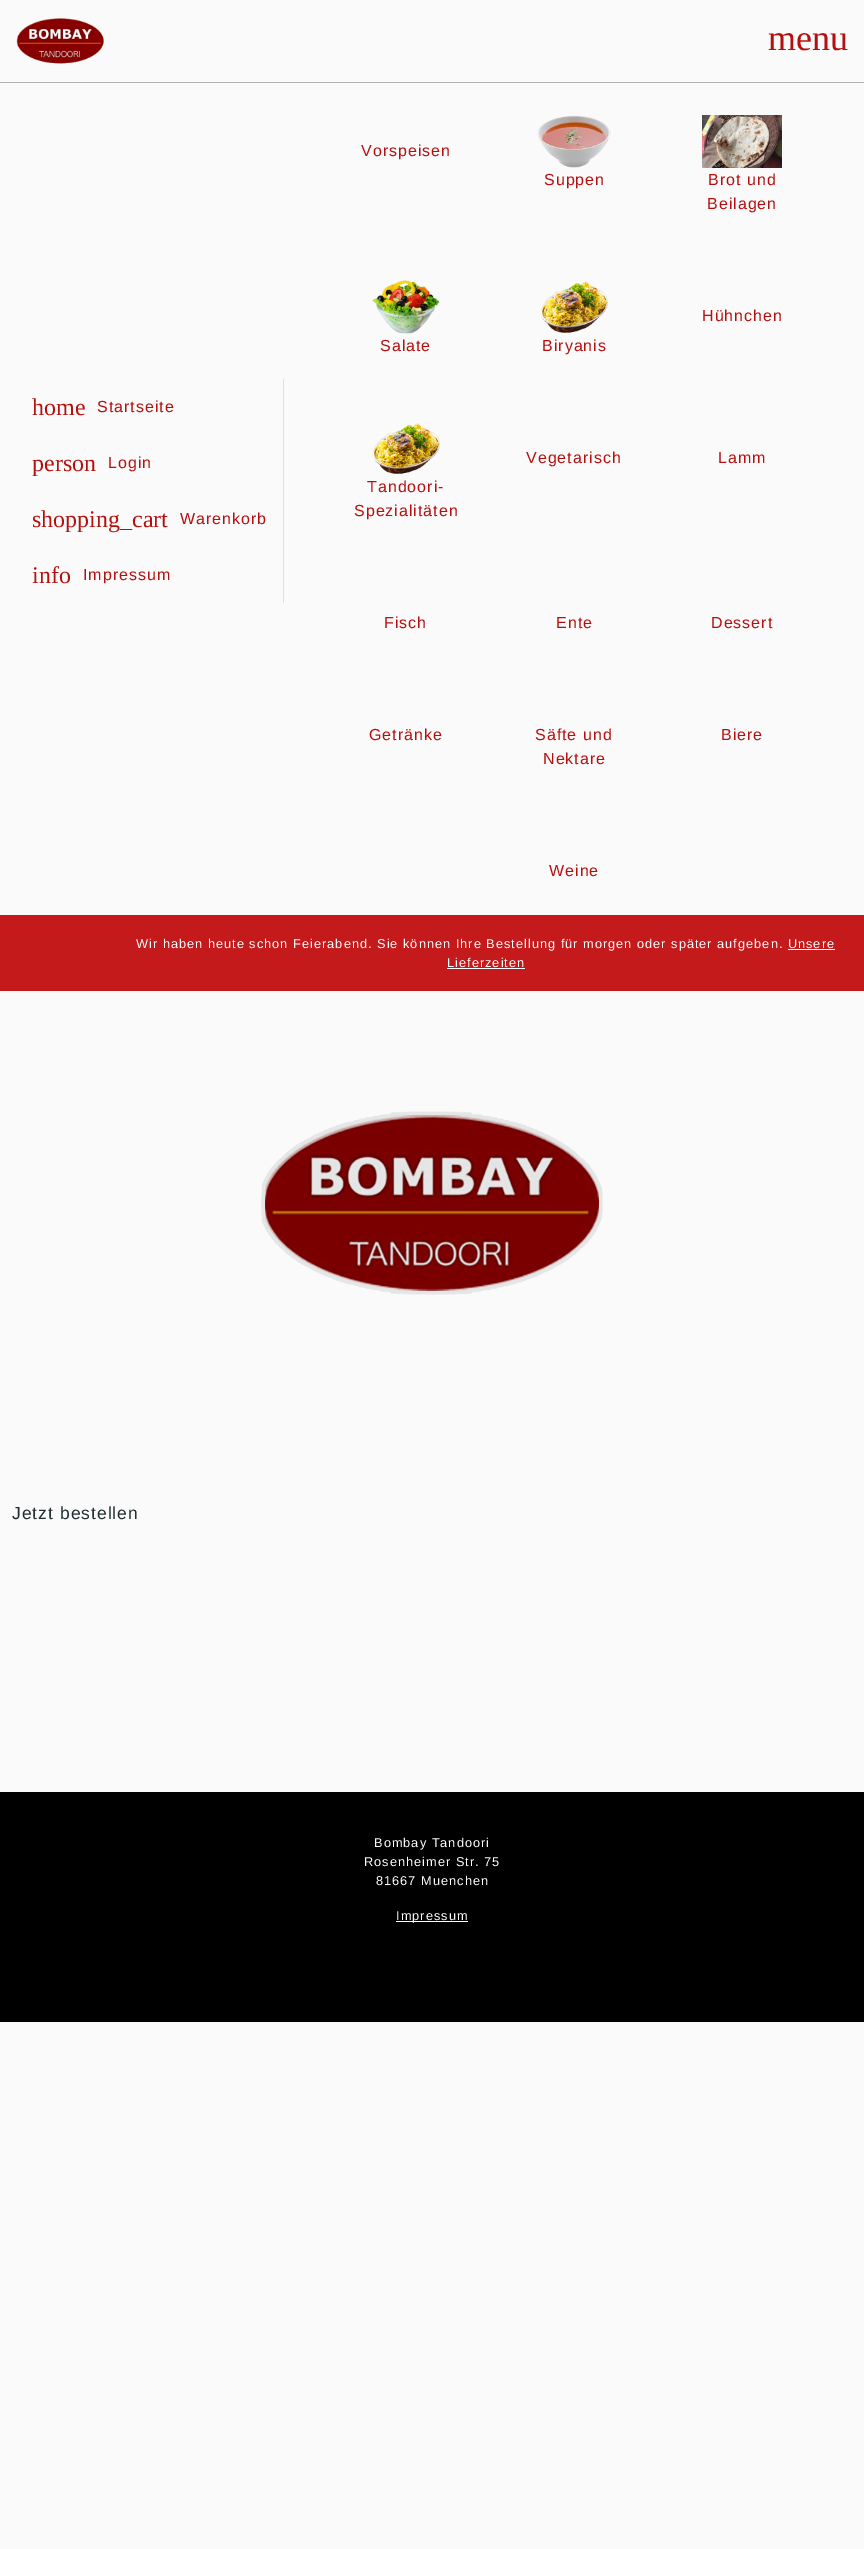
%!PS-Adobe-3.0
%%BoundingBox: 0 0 864 2549
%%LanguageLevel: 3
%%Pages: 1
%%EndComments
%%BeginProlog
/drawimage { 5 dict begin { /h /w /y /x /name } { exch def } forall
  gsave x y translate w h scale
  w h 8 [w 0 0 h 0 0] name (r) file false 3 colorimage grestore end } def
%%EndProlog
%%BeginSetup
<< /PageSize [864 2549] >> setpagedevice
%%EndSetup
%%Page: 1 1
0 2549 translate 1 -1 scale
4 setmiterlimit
0.98 setgray
0 0 864 2549 rectfill
0.694 setgray
0 82 864 1 rectfill
(images/1.raw) 16 18 88 46 drawimage
0.875 setgray
283 379 1 224 rectfill
(images/2.raw) 537 115 74 53 drawimage
(images/3.raw) 702 115 80 53 drawimage
(images/4.raw) 372 280 68 54 drawimage
(images/5.raw) 540 281 68 52 drawimage
(images/6.raw) 372 423 68 51 drawimage
0.773 0.102 0.106 setrgbcolor
0 915 864 76 rectfill
1 setgray
788 949 47 1 rectfill
447 968 78 1 rectfill
(images/7.raw) 261 1111 342 184 drawimage
0 setgray
0 1792 864 230 rectfill
1 setgray
396 1921 72 1 rectfill
/LiberationSerif-Regular [36 0 0 -36 0 0] selectfont
0.714 0.059 0.059 setrgbcolor
768 50 moveto (menu) show
/LiberationSerif-Regular [24 0 0 -24 0 0] selectfont
32 415 moveto (home) show
/LiberationSans-Regular [16 0 0 -16 0 0] selectfont
97 412 moveto 1 0 (Startseite) ashow
/LiberationSerif-Regular [24 0 0 -24 0 0] selectfont
32 471 moveto (person) show
/LiberationSans-Regular [16 0 0 -16 0 0] selectfont
108 468 moveto 1 0 (Login) ashow
/LiberationSerif-Regular [24 0 0 -24 0 0] selectfont
32 527 moveto (shopping_cart) show
/LiberationSans-Regular [16 0 0 -16 0 0] selectfont
180 524 moveto 1 0 (Warenkorb) ashow
/LiberationSerif-Regular [24 0 0 -24 0 0] selectfont
32 583 moveto (info) show
/LiberationSans-Regular [16 0 0 -16 0 0] selectfont
83 580 moveto 1 0 (Impressum) ashow
361 156 moveto 1 0 (Vorspeisen) ashow
544 185 moveto 1 0 (Suppen) ashow
708 185 moveto 1 0 (Brot und) ashow
707 209 moveto 1 0 (Beilagen) ashow
702 321 moveto 1 0 (Hühnchen) ashow
380 351 moveto 1 0 (Salate) ashow
542 351 moveto 1 0 (Biryanis) ashow
526 463 moveto 1 0 (Vegetarisch) ashow
718 463 moveto 1 0 (Lamm) ashow
367 492 moveto 1 0 (Tandoori-) ashow
354 516 moveto 1 0 (Spezialitäten) ashow
384 628 moveto 1 0 (Fisch) ashow
556 628 moveto 1 0 (Ente) ashow
711 628 moveto 1 0 (Dessert) ashow
369 740 moveto 1 0 (Getränke) ashow
535 740 moveto 1 0 (Säfte und) ashow
543 764 moveto 1 0 (Nektare) ashow
721 740 moveto 1 0 (Biere) ashow
549 876 moveto 1 0 (Weine) ashow
/LiberationSans-Regular [12.8 0 0 -12.8 0 0] selectfont
1 setgray
136 948 moveto 1 0 (Wir haben heute schon Feierabend. Sie können Ihre Bestellung für morgen oder später aufgeben. Unsere) ashow
447 967 moveto 1 0 (Lieferzeiten) ashow
/LiberationSans-Regular [17.5 0 0 -17.5 0 0] selectfont
0.125 0.188 0.188 setrgbcolor
12 1519 moveto 1 0 (Jetzt bestellen) ashow
/LiberationSans-Regular [12.8 0 0 -12.8 0 0] selectfont
1 setgray
374 1847 moveto 1 0 (Bombay Tandoori) ashow
364 1866 moveto 1 0 (Rosenheimer Str. 75) ashow
376 1885 moveto 1 0 (81667 Muenchen) ashow
396 1920 moveto 1 0 (Impressum) ashow
showpage
%%EOF
